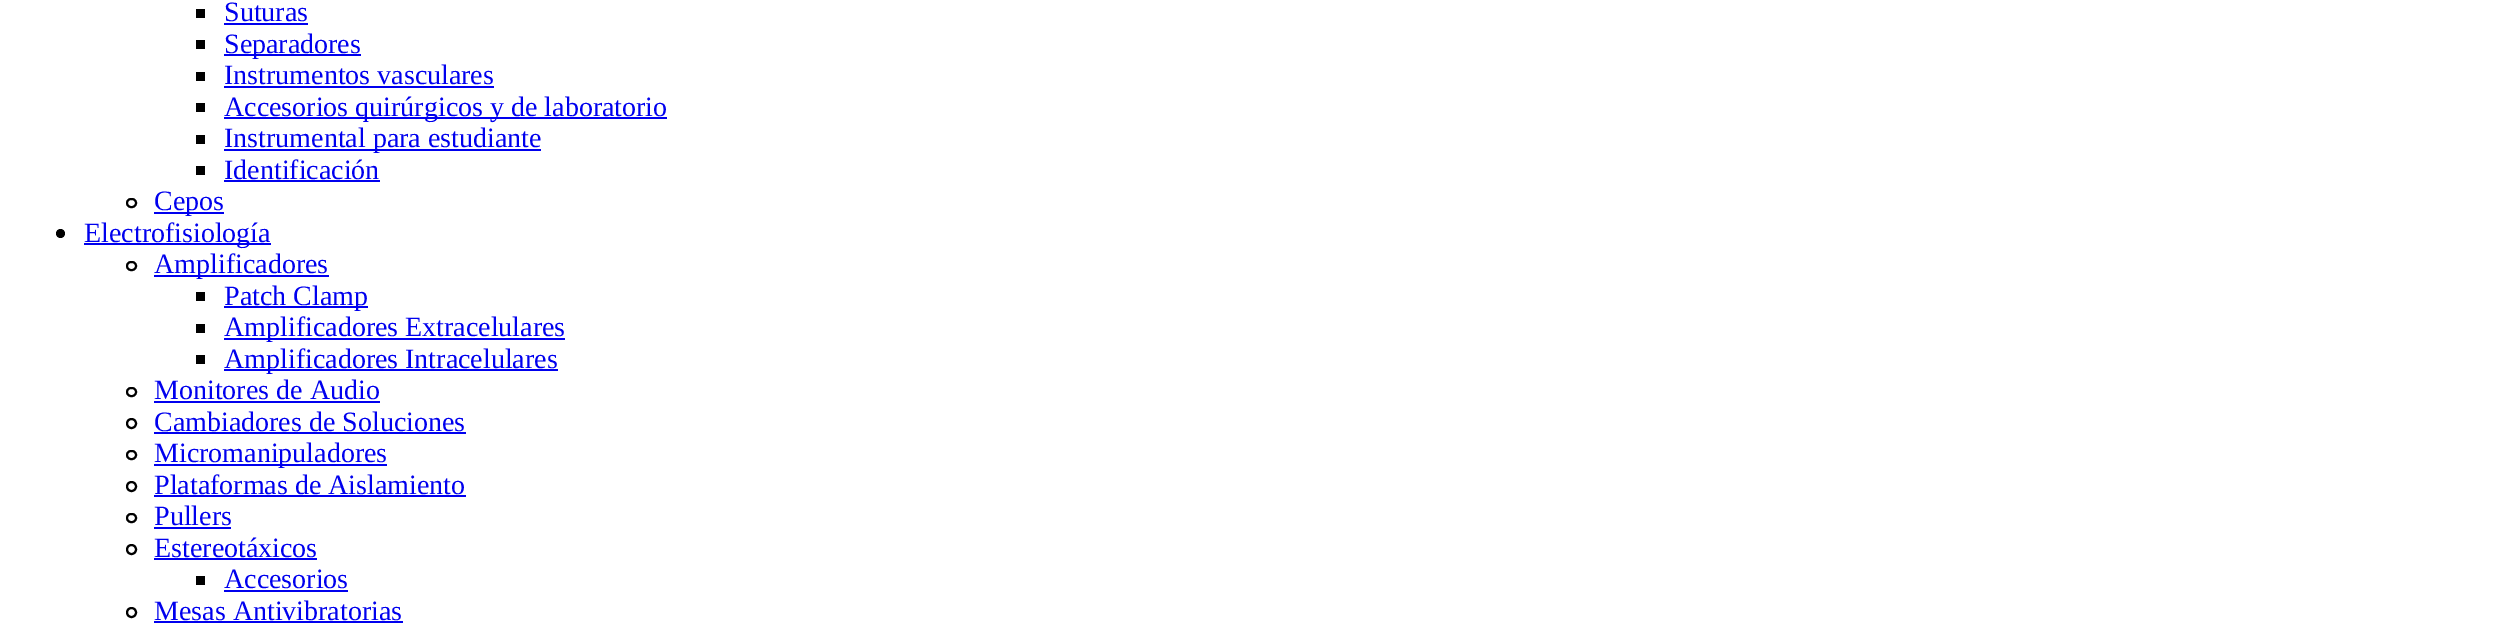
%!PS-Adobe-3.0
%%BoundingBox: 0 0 2494 628
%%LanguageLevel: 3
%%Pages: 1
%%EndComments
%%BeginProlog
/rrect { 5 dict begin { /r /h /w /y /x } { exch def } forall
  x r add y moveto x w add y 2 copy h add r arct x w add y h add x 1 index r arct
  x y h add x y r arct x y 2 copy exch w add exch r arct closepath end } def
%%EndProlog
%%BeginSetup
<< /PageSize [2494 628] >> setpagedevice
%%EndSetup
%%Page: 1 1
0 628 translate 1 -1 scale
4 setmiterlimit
1 setgray
0 0 2494 628 rectfill
0 setgray
196 9 9 9 rectfill
0 0 0.933 setrgbcolor
224 23 84 2 rectfill
0 setgray
196 40 9 9 rectfill
0 0 0.933 setrgbcolor
224 54 137 2 rectfill
0 setgray
196 72 9 9 rectfill
0 0 0.933 setrgbcolor
224 86 270 2 rectfill
0 setgray
196 103 9 9 rectfill
0 0 0.933 setrgbcolor
224 117 443 2 rectfill
0 setgray
196 135 9 9 rectfill
0 0 0.933 setrgbcolor
224 149 317 2 rectfill
0 setgray
196 166 9 9 rectfill
0 0 0.933 setrgbcolor
224 180 156 2 rectfill
0 setgray
2 setlinewidth
127 199 9 8 4 rrect stroke
0 0 0.933 setrgbcolor
154 212 70 2 rectfill
0 setgray
newpath 60.5 233.5 4.5 0 360 arc closepath fill
0 0 0.933 setrgbcolor
84 243 187 2 rectfill
0 setgray
127 262 9 8 4 rrect stroke
0 0 0.933 setrgbcolor
154 275 175 2 rectfill
0 setgray
196 292 9 9 rectfill
0 0 0.933 setrgbcolor
224 306 144 2 rectfill
0 setgray
196 324 9 9 rectfill
0 0 0.933 setrgbcolor
224 338 341 2 rectfill
0 setgray
196 355 9 9 rectfill
0 0 0.933 setrgbcolor
224 369 334 2 rectfill
0 setgray
127 388 9 8 4 rrect stroke
0 0 0.933 setrgbcolor
154 401 226 2 rectfill
0 setgray
newpath 131.5 423.5 4.5 0 360 arc closepath stroke
0 0 0.933 setrgbcolor
154 432 312 2 rectfill
0 setgray
127 451 9 8 4 rrect stroke
0 0 0.933 setrgbcolor
154 464 233 2 rectfill
0 setgray
newpath 131.5 486.5 4.5 0 360 arc closepath stroke
0 0 0.933 setrgbcolor
154 495 312 2 rectfill
0 setgray
127 514 9 8 4 rrect stroke
0 0 0.933 setrgbcolor
154 527 77 2 rectfill
0 setgray
newpath 131.5 549.5 4.5 0 360 arc closepath stroke
0 0 0.933 setrgbcolor
154 558 163 2 rectfill
0 setgray
196 576 9 9 rectfill
0 0 0.933 setrgbcolor
224 590 124 2 rectfill
0 setgray
newpath 131.5 612.5 4.5 0 360 arc closepath stroke
0 0 0.933 setrgbcolor
154 621 249 2 rectfill
/LiberationSerif-Regular [28 0 0 -28 0 0] selectfont
224 21 moveto (Suturas) show
224 53 moveto (Separadores) show
224 84 moveto (Instrumentos vasculares) show
224 116 moveto (Accesorios quirúrgicos y de laboratorio) show
224 147 moveto (Instrumental para estudiante) show
224 179 moveto (Identificación) show
154 210 moveto (Cepos) show
84 242 moveto (Electrofisiología) show
154 273 moveto (Amplificadores) show
224 305 moveto (Patch Clamp) show
224 336 moveto (Amplificadores Extracelulares) show
224 368 moveto (Amplificadores Intracelulares) show
154 399 moveto (Monitores de Audio) show
154 431 moveto (Cambiadores de Soluciones) show
154 462 moveto (Micromanipuladores) show
154 494 moveto (Plataformas de Aislamiento) show
154 525 moveto (Pullers) show
154 557 moveto (Estereotáxicos) show
224 588 moveto (Accesorios) show
154 620 moveto (Mesas Antivibratorias) show
showpage
%%EOF
